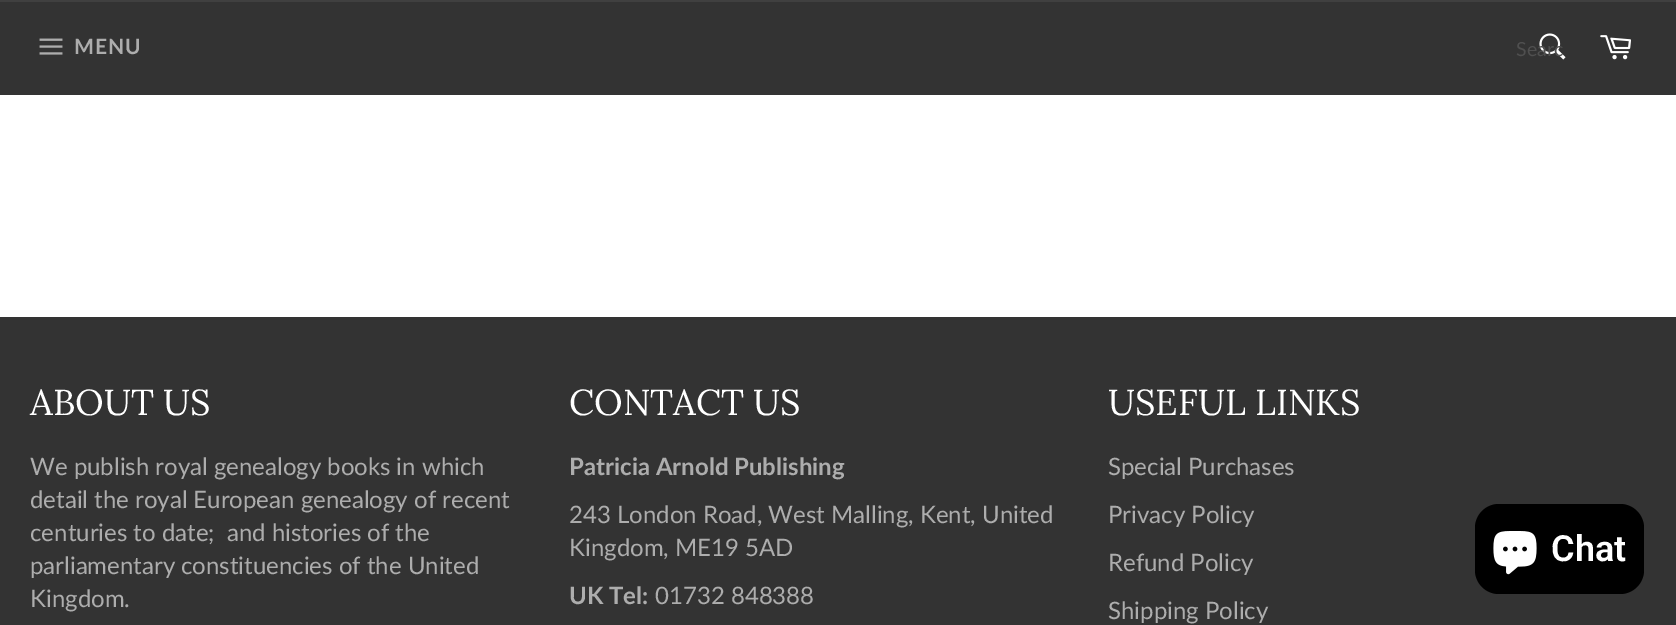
%!PS-Adobe-3.0
%%BoundingBox: 0 0 1676 625
%%LanguageLevel: 3
%%Pages: 1
%%EndComments
%%BeginProlog
/rrect { 5 dict begin { /r /h /w /y /x } { exch def } forall
  x r add y moveto x w add y 2 copy h add r arct x w add y h add x 1 index r arct
  x y h add x y r arct x y 2 copy exch w add exch r arct closepath end } def
/drawimage { 5 dict begin { /h /w /y /x /name } { exch def } forall
  gsave x y translate w h scale
  w h 8 [w 0 0 h 0 0] name (r) file false 3 colorimage grestore end } def
%%EndProlog
%%BeginSetup
<< /PageSize [1676 625] >> setpagedevice
%%EndSetup
%%Page: 1 1
0 625 translate 1 -1 scale
4 setmiterlimit
1 setgray
0 0 1676 625 rectfill
0.2 setgray
0 2 1676 93 rectfill
0.251 setgray
0 0 1676 2 rectfill
(images/1.raw) 39 38 24 17 drawimage
(images/2.raw) 1539 33 27 27 drawimage
(images/3.raw) 1600 35 31 25 drawimage
0.2 setgray
0 317 1676 308 rectfill
0 setgray
1475 504 169 90 24 rrect fill
(images/4.raw) 1493 531 44 44 drawimage
/Lato-Bold [21 0 0 -21 0 0] selectfont
0.678 setgray
74 54 moveto 1 0 (MENU) ashow
/Lato-Regular [19.5 0 0 -19.5 0 0] selectfont
0.31 setgray
1516 56 moveto (Searc) show
/Lora-Regular [36 0 0 -36 0 0] selectfont
1 setgray
30 415 moveto (ABOUT US) show
/Lato-Regular [24 0 0 -24 0 0] selectfont
0.678 setgray
30 475 moveto (We publish royal genealogy books in which) show
30 508 moveto (detail the royal European genealogy of recent) show
30 541 moveto (centuries to date;  and histories of the) show
30 574 moveto (parliamentary constituencies of the United) show
30 607 moveto (Kingdom.) show
/Lora-Regular [36 0 0 -36 0 0] selectfont
1 setgray
569 415 moveto (CONTACT US) show
/Lato-Bold [24 0 0 -24 0 0] selectfont
0.678 setgray
569 475 moveto (Patricia Arnold Publishing) show
/Lato-Regular [24 0 0 -24 0 0] selectfont
569 523 moveto (243 London Road, West Malling, Kent, United) show
569 556 moveto (Kingdom, ME19 5AD) show
/Lato-Bold [24 0 0 -24 0 0] selectfont
569 604 moveto (UK Tel:) show
/Lato-Regular [24 0 0 -24 0 0] selectfont
655 604 moveto (01732 848388) show
/Lora-Regular [36 0 0 -36 0 0] selectfont
1 setgray
1108 415 moveto (USEFUL LINKS) show
/Lato-Regular [24 0 0 -24 0 0] selectfont
0.678 setgray
1108 475 moveto (Special Purchases) show
1108 523 moveto (Privacy Policy) show
1108 571 moveto (Refund Policy) show
1108 619 moveto (Shipping Policy) show
/Roboto-SemiBold [36 0 0 -36 0 0] selectfont
1 setgray
1551 561 moveto (Chat) show
showpage
%%EOF
